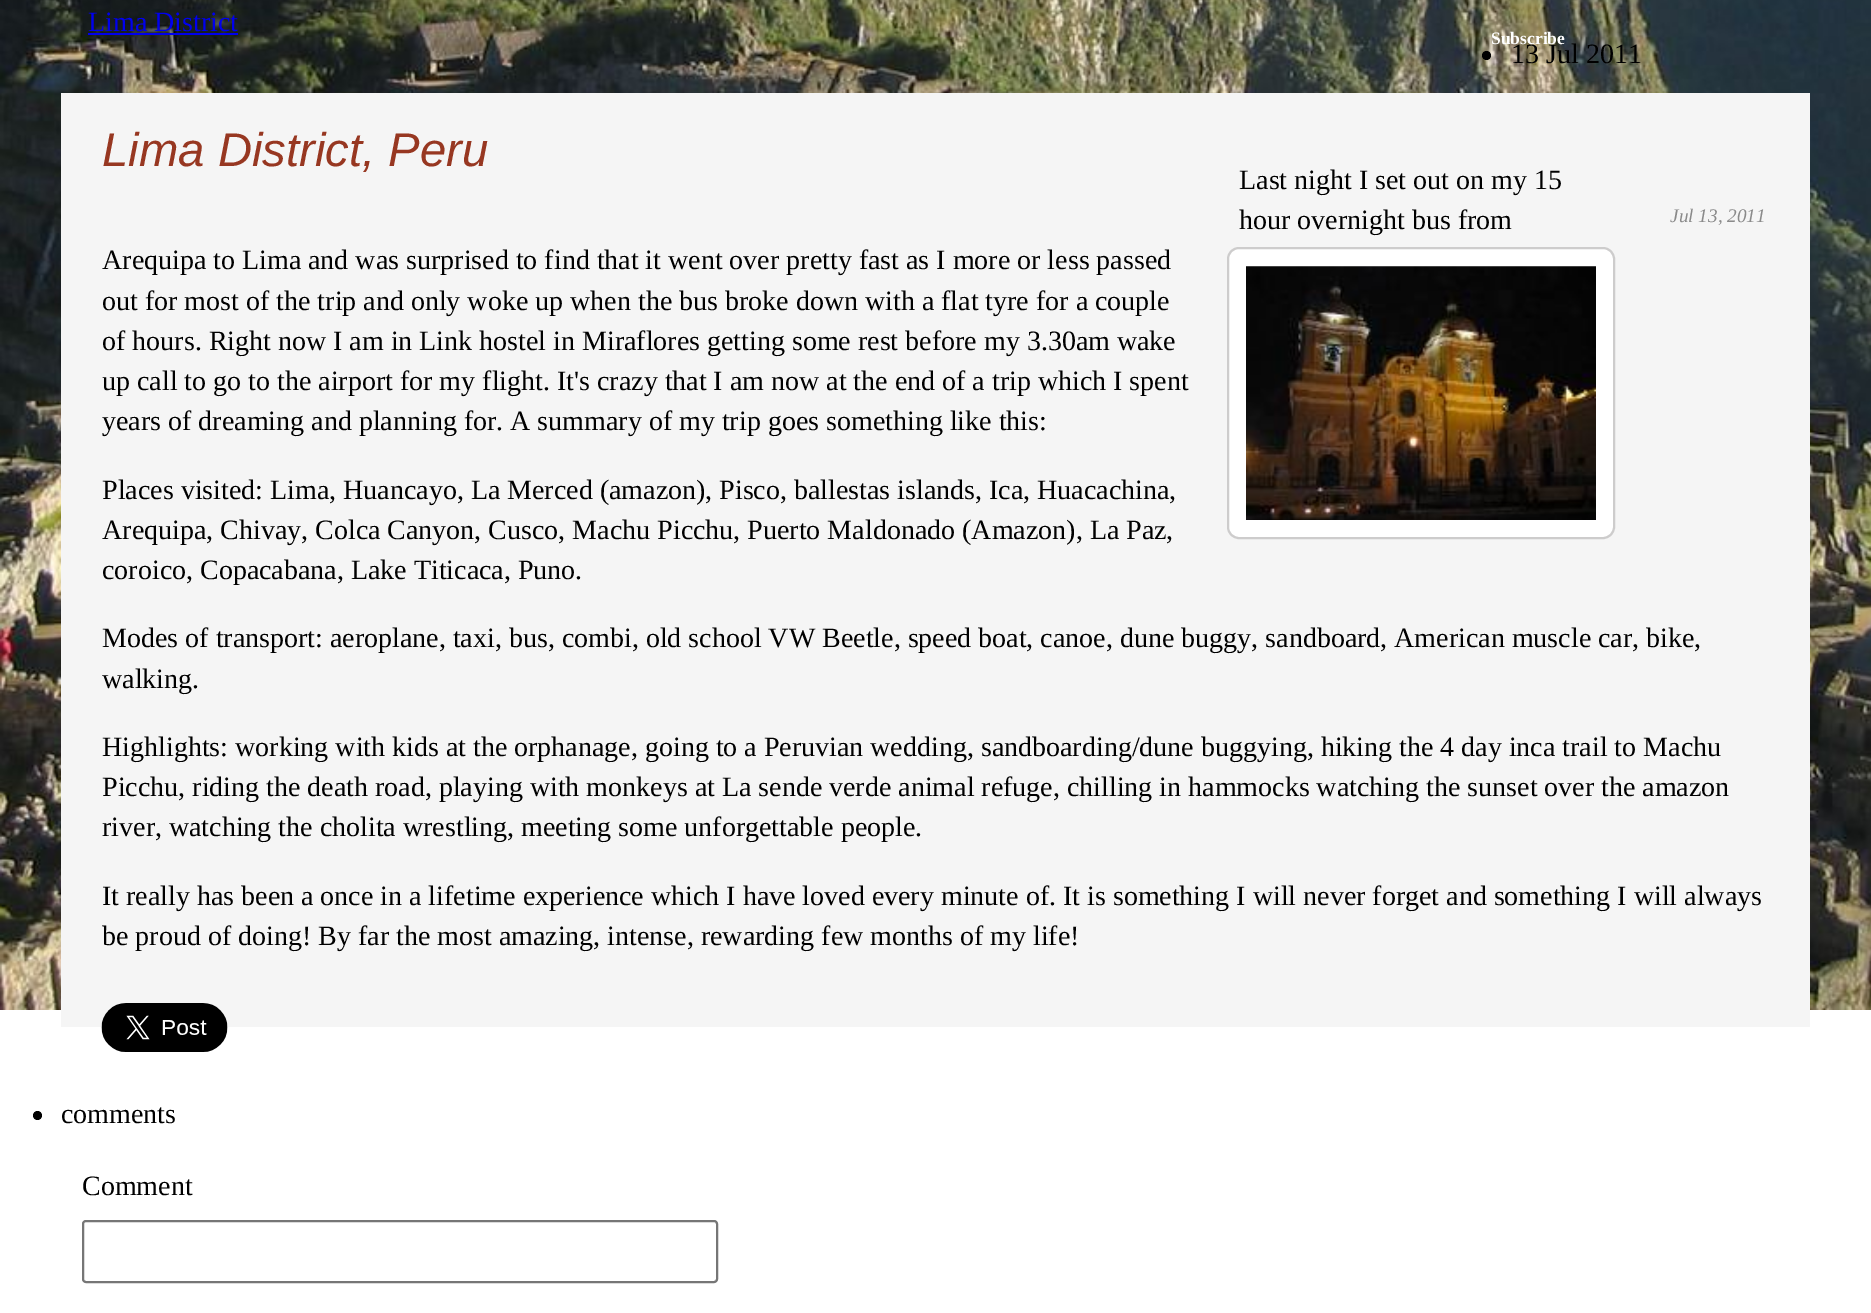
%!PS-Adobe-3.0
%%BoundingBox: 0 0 1871 1313
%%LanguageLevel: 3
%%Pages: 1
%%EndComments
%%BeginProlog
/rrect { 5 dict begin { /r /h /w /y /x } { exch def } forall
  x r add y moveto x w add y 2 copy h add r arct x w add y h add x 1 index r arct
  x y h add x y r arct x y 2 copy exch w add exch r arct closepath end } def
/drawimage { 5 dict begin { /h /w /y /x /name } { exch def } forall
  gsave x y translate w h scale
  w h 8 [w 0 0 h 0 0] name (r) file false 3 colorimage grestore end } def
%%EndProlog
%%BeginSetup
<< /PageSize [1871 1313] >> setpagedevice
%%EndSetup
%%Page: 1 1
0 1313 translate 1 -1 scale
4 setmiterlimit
1 setgray
0 0 1871 1313 rectfill
(images/1.raw) 0 0 1871 1010 drawimage
0 0 0.933 setrgbcolor
88 33 150 2 rectfill
0 setgray
newpath 1486.5 55.5 4.5 0 360 arc closepath fill
0.961 setgray
61 93 1749 934 rectfill
1 setgray
1228 248 386 290 11 rrect gsave fill grestore
0.804 0.8 0.8 setrgbcolor
2 setlinewidth
stroke
(images/2.raw) 1246 266 350 254 drawimage
(images/3.raw) 101 1003 127 49 drawimage
0 setgray
newpath 37.5 1115.5 4.5 0 360 arc closepath fill
0.463 setgray
83 1221 634 61 3 rrect stroke
/LiberationSerif-Regular [28 0 0 -28 0 0] selectfont
0 0 0.933 setrgbcolor
88 31 moveto (Lima District) show
0 setgray
1511 63 moveto (13 Jul 2011) show
/LiberationSerif-Bold [17.5 0 0 -17.5 0 0] selectfont
1 setgray
1491 44 moveto (Subscribe) show
/LiberationSans-Italic [47.25 0 0 -47.25 0 0] selectfont
0.592 0.216 0.129 setrgbcolor
102 166 moveto (Lima District, Peru) show
/LiberationSerif-Italic [19.25 0 0 -19.25 0 0] selectfont
0.541 setgray
1670 222 moveto (Jul 13, 2011) show
/LiberationSerif-Regular [28 0 0 -28 0 0] selectfont
0 setgray
1239 189 moveto (Last night I set out on my 15) show
1239 229 moveto (hour overnight bus from) show
102 269 moveto (Arequipa to Lima and was surprised to find that it went over pretty fast as I more or less passed) show
102 310 moveto (out for most of the trip and only woke up when the bus broke down with a flat tyre for a couple) show
102 350 moveto (of hours. Right now I am in Link hostel in Miraflores getting some rest before my 3.30am wake) show
102 390 moveto (up call to go to the airport for my flight. It's crazy that I am now at the end of a trip which I spent) show
102 430 moveto (years of dreaming and planning for. A summary of my trip goes something like this:) show
102 499 moveto (Places visited: Lima, Huancayo, La Merced \(amazon\), Pisco, ballestas islands, Ica, Huacachina,) show
102 539 moveto (Arequipa, Chivay, Colca Canyon, Cusco, Machu Picchu, Puerto Maldonado \(Amazon\), La Paz,) show
102 579 moveto (coroico, Copacabana, Lake Titicaca, Puno.) show
102 647 moveto (Modes of transport: aeroplane, taxi, bus, combi, old school VW Beetle, speed boat, canoe, dune buggy, sandboard, American muscle car, bike,) show
102 688 moveto (walking.) show
102 756 moveto (Highlights: working with kids at the orphanage, going to a Peruvian wedding, sandboarding/dune buggying, hiking the 4 day inca trail to Machu) show
102 796 moveto (Picchu, riding the death road, playing with monkeys at La sende verde animal refuge, chilling in hammocks watching the sunset over the amazon) show
102 836 moveto (river, watching the cholita wrestling, meeting some unforgettable people.) show
102 905 moveto (It really has been a once in a lifetime experience which I have loved every minute of. It is something I will never forget and something I will always) show
102 945 moveto (be proud of doing! By far the most amazing, intense, rewarding few months of my life!) show
61 1123 moveto (comments) show
82 1195 moveto (Comment) show
showpage
%%EOF
